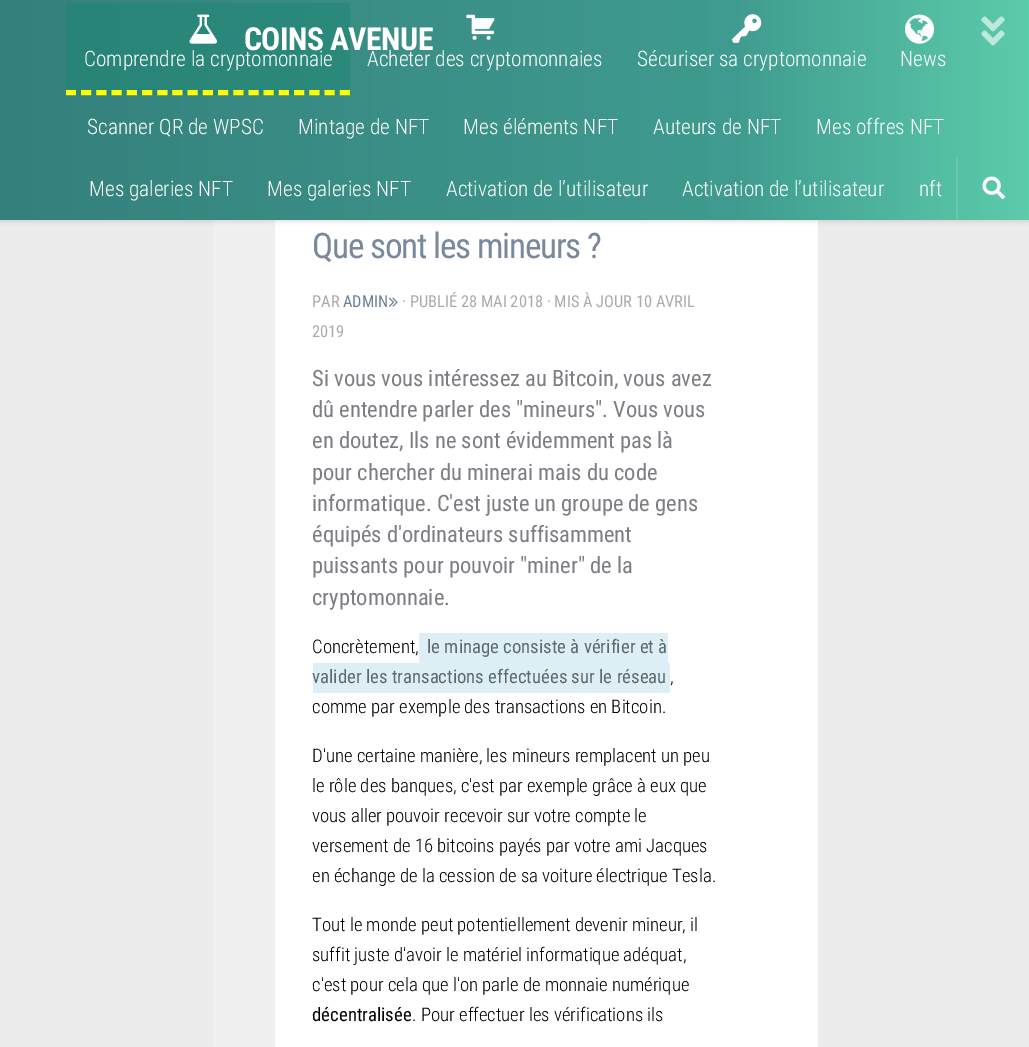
%!PS-Adobe-3.0
%%BoundingBox: 0 0 1029 1047
%%LanguageLevel: 3
%%Pages: 1
%%EndComments
%%BeginProlog
/setalpha { dup .setfillconstantalpha .setstrokeconstantalpha } def
/rrect { 5 dict begin { /r /h /w /y /x } { exch def } forall
  x r add y moveto x w add y 2 copy h add r arct x w add y h add x 1 index r arct
  x y h add x y r arct x y 2 copy exch w add exch r arct closepath end } def
/softshadow { 12 dict begin { /a /b /q /h /w /y /x } { exch def } forall gsave /was 0 def
  9 -2 -9 { dup b mul 4 div /e exch def 1 sub .425 mul 2.718 exch exp 1 add a .99 .min exch div /now exch def
    1 1 now sub 1 was sub div sub setalpha /was now def
    w h .min e 2 mul add 0 gt { x e sub y e sub w e 2 mul add h e 2 mul add
      q e add b .6 mul add w h .min 2 div e add .min 0 .max rrect fill } if } for grestore end } def
/drawimage { 5 dict begin { /h /w /y /x /name } { exch def } forall
  gsave x y translate w h scale
  w h 8 [w 0 0 h 0 0] name (r) file false 3 colorimage grestore end } def
%%EndProlog
%%BeginSetup
<< /PageSize [1029 1047] /PageUsesTransparency true >> setpagedevice
%%EndSetup
%%Page: 1 1
0 .pushpdf14devicefilter
0 1047 translate 1 -1 scale
4 setmiterlimit
0.925 setgray
0 0 1029 1047 rectfill
1 setgray
275 220 543 827 rectfill
0.941 setgray
213 220 62 827 rectfill
0.15 setalpha
1 setgray
0 220 1029 1 rectfill
1 setalpha
0 setgray
0 0 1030 220 0 3 0.2 softshadow
gsave newpath 0 0 moveto 1029 0 lineto 1029 220 lineto 0 220 lineto closepath clip newpath
<< /ShadingType 2 /ColorSpace /DeviceRGB /Coords [0 110 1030 110] /Extend [true true] /Function << /FunctionType 3 /Domain [0 1] /Functions [<< /FunctionType 2 /Domain [0 1] /C0 [0.204 0.502 0.486] /C1 [0.247 0.608 0.561] /N 1 >> << /FunctionType 2 /Domain [0 1] /C0 [0.247 0.608 0.561] /C1 [0.365 0.8 0.671] /N 1 >>] /Bounds [0.71] /Encode [0 1 0 1] >> >> shfill grestore
gsave newpath 66 3 moveto 350 3 lineto 350 95 lineto 66 95 lineto closepath clip newpath
<< /ShadingType 2 /ColorSpace /DeviceRGB /Coords [0 110 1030 110] /Extend [true true] /Function << /FunctionType 3 /Domain [0 1] /Functions [<< /FunctionType 2 /Domain [0 1] /C0 [0.157 0.51 0.467] /C1 [0.18 0.576 0.51] /N 1 >> << /FunctionType 2 /Domain [0 1] /C0 [0.18 0.576 0.51] /C1 [0.251 0.69 0.576] /N 1 >>] /Bounds [0.71] /Encode [0 1 0 1] >> >> shfill grestore
(images/1.raw) 981 16 24 30 drawimage
1 1 0 setrgbcolor
5 setlinewidth
[10 5.21] 0 setdash
newpath 66 92.5 moveto 350 92.5 lineto stroke
(images/2.raw) 189 14 29 30 drawimage
(images/3.raw) 466 14 29 26 drawimage
(images/4.raw) 731 14 31 29 drawimage
(images/5.raw) 905 14 30 30 drawimage
0.404 0.776 0.678 setrgbcolor
956 158 2 62 rectfill
(images/6.raw) 982 176 23 23 drawimage
(images/7.raw) 388 297 10 10 drawimage
0.867 0.937 0.961 setrgbcolor
419 633 249 30 rectfill
313 663 357 30 rectfill
/RobotoCondensed-Bold [31.75 0 0 -31.75 0 0] selectfont
1 setgray
244 50 moveto -0.6 0 (COINS AVENUE) ashow
/RobotoCondensed-Light [21.25 0 0 -21.25 0 0] selectfont
84 66 moveto (Comprendre la cryptomonnaie) show
367 66 moveto (Acheter des cryptomonnaies) show
637 66 moveto (Sécuriser sa cryptomonnaie) show
900 66 moveto (News) show
87 134 moveto (Scanner QR de WPSC) show
298 134 moveto (Mintage de NFT) show
463 134 moveto (Mes éléments NFT) show
653 134 moveto (Auteurs de NFT) show
816 134 moveto (Mes offres NFT) show
89 196 moveto (Mes galeries NFT) show
267 196 moveto (Mes galeries NFT) show
446 196 moveto (Activation de l’utilisateur) show
682 196 moveto (Activation de l’utilisateur) show
919 196 moveto (nft) show
/RobotoCondensed-Regular [35.25 0 0 -35.25 0 0] selectfont
0.475 0.537 0.616 setrgbcolor
312 258 moveto -1.25 0 (Que sont les mineurs ?) ashow
/RobotoCondensed-Regular [16.4 0 0 -16.4 0 0] selectfont
0.667 setgray
312 307 moveto (PAR) show
0.42 0.49 0.576 setrgbcolor
343 307 moveto (ADMIN) show
0.667 setgray
402 307 moveto (· PUBLIÉ 28 MAI 2018 · MIS À JOUR 10 AVRIL) show
gsave
313 224 405 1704 rectclip
312 337 moveto (2019) show
grestore
/RobotoCondensed-Regular [22.5 0 0 -22.5 0 0] selectfont
0.502 0.486 0.514 setrgbcolor
312 386 moveto (Si vous vous intéressez au Bitcoin, vous avez) show
312 417 moveto (dû entendre parler des "mineurs". Vous vous) show
312 448 moveto (en doutez, Ils ne sont évidemment pas là) show
312 480 moveto (pour chercher du minerai mais du code) show
312 511 moveto (informatique. C'est juste un groupe de gens) show
312 542 moveto (équipés d'ordinateurs suffisamment) show
312 573 moveto (puissants pour pouvoir "miner" de la) show
312 605 moveto (cryptomonnaie.) show
/RobotoCondensed-Light [18.75 0 0 -18.75 0 0] selectfont
0 setgray
312 653 moveto (Concrètement,) show
/RobotoCondensed-Regular [18.75 0 0 -18.75 0 0] selectfont
0.353 0.412 0.439 setrgbcolor
427 653 moveto (le minage consiste à vérifier et à) show
312 683 moveto (valider les transactions effectuées sur le réseau) show
/RobotoCondensed-Light [18.75 0 0 -18.75 0 0] selectfont
0 setgray
670 683 moveto (,) show
312 713 moveto (comme par exemple des transactions en Bitcoin.) show
312 762 moveto (D'une certaine manière, les mineurs remplacent un peu) show
312 792 moveto (le rôle des banques, c'est par exemple grâce à eux que) show
312 822 moveto (vous aller pouvoir recevoir sur votre compte le) show
312 852 moveto (versement de 16 bitcoins payés par votre ami Jacques) show
gsave
313 224 405 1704 rectclip
312 882 moveto (en échange de la cession de sa voiture électrique Tesla.) show
grestore
312 931 moveto (Tout le monde peut potentiellement devenir mineur, il) show
312 961 moveto (suffit juste d'avoir le matériel informatique adéquat,) show
312 991 moveto (c'est pour cela que l'on parle de monnaie numérique) show
/RobotoCondensed-Regular [18.75 0 0 -18.75 0 0] selectfont
312 1021 moveto (décentralisée) show
/RobotoCondensed-Light [18.75 0 0 -18.75 0 0] selectfont
412 1021 moveto (. Pour effectuer les vérifications ils) show
.poppdf14devicefilter showpage
%%EOF
